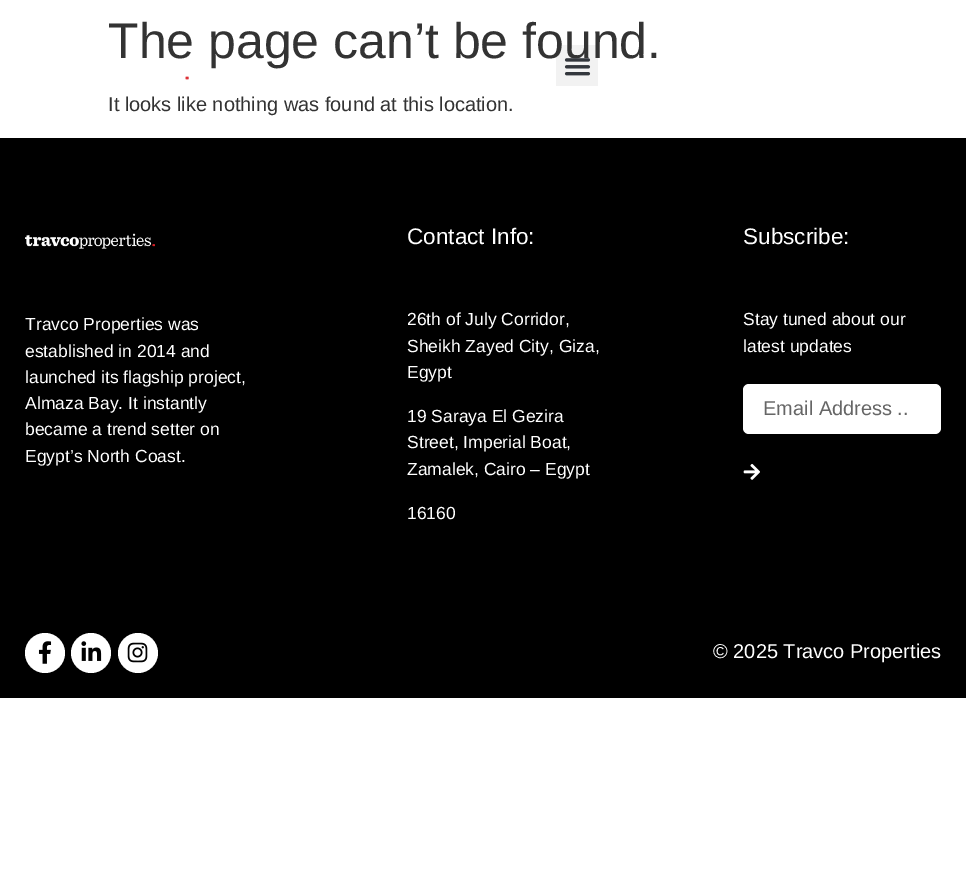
%!PS-Adobe-3.0
%%BoundingBox: 0 0 966 885
%%LanguageLevel: 3
%%Pages: 1
%%EndComments
%%BeginProlog
/setalpha { dup .setfillconstantalpha .setstrokeconstantalpha } def
/rrect { 5 dict begin { /r /h /w /y /x } { exch def } forall
  x r add y moveto x w add y 2 copy h add r arct x w add y h add x 1 index r arct
  x y h add x y r arct x y 2 copy exch w add exch r arct closepath end } def
/drawimage { 5 dict begin { /h /w /y /x /name } { exch def } forall
  gsave x y translate w h scale
  w h 8 [w 0 0 h 0 0] name (r) file false 3 colorimage grestore end } def
%%EndProlog
%%BeginSetup
<< /PageSize [966 885] /PageUsesTransparency true >> setpagedevice
%%EndSetup
%%Page: 1 1
0 .pushpdf14devicefilter
0 885 translate 1 -1 scale
4 setmiterlimit
1 setgray
0 0 966 885 rectfill
(images/1.raw) 185 76 4 4 drawimage
0.05 setalpha
0 setgray
556 45 42 41 rectfill
1 setalpha
0 138 966 560 rectfill
(images/3.raw) 25 233 130 16 drawimage
1 setgray
743 384 198 50 6 rrect fill
(images/4.raw) 743 463 17 17 drawimage
newpath 45 653 20 0 360 arc closepath fill
(images/5.raw) 38 641 14 23 drawimage
newpath 91 653 20 0 360 arc closepath fill
(images/6.raw) 81 641 21 20 drawimage
newpath 138 653 20 0 360 arc closepath fill
(images/7.raw) 127 642 21 21 drawimage
/LiberationSans-Regular [50 0 0 -50 0 0] selectfont
0.2 setgray
108 58 moveto (The page can’t be found.) show
/LiberationSans-Regular [20 0 0 -20 0 0] selectfont
108 111 moveto (It looks like nothing was found at this location.) show
(images/2.raw) 564 58 27 18 drawimage
/LiberationSans-Regular [17.5 0 0 -17.5 0 0] selectfont
1 setgray
25 330 moveto (Travco Properties was) show
25 357 moveto (established in 2014 and) show
25 383 moveto (launched its flagship project,) show
25 409 moveto (Almaza Bay. It instantly) show
25 435 moveto (became a trend setter on) show
25 462 moveto (Egypt’s North Coast.) show
/LiberationSans-Regular [22.5 0 0 -22.5 0 0] selectfont
407 244 moveto (Contact Info:) show
/LiberationSans-Regular [17.5 0 0 -17.5 0 0] selectfont
407 325 moveto (26th of July Corridor,) show
407 352 moveto (Sheikh Zayed City, Giza,) show
407 378 moveto (Egypt) show
407 422 moveto (19 Saraya El Gezira) show
407 448 moveto (Street, Imperial Boat,) show
407 475 moveto (Zamalek, Cairo – Egypt) show
407 519 moveto (16160) show
/LiberationSans-Regular [22.5 0 0 -22.5 0 0] selectfont
743 244 moveto (Subscribe:) show
/LiberationSans-Regular [17.5 0 0 -17.5 0 0] selectfont
743 325 moveto (Stay tuned about our) show
743 352 moveto (latest updates) show
/LiberationSans-Regular [20 0 0 -20 0 0] selectfont
0.4 setgray
763 415 moveto (Email Address ..) show
1 setgray
713 658 moveto (© 2025 Travco Properties) show
.poppdf14devicefilter showpage
%%EOF
